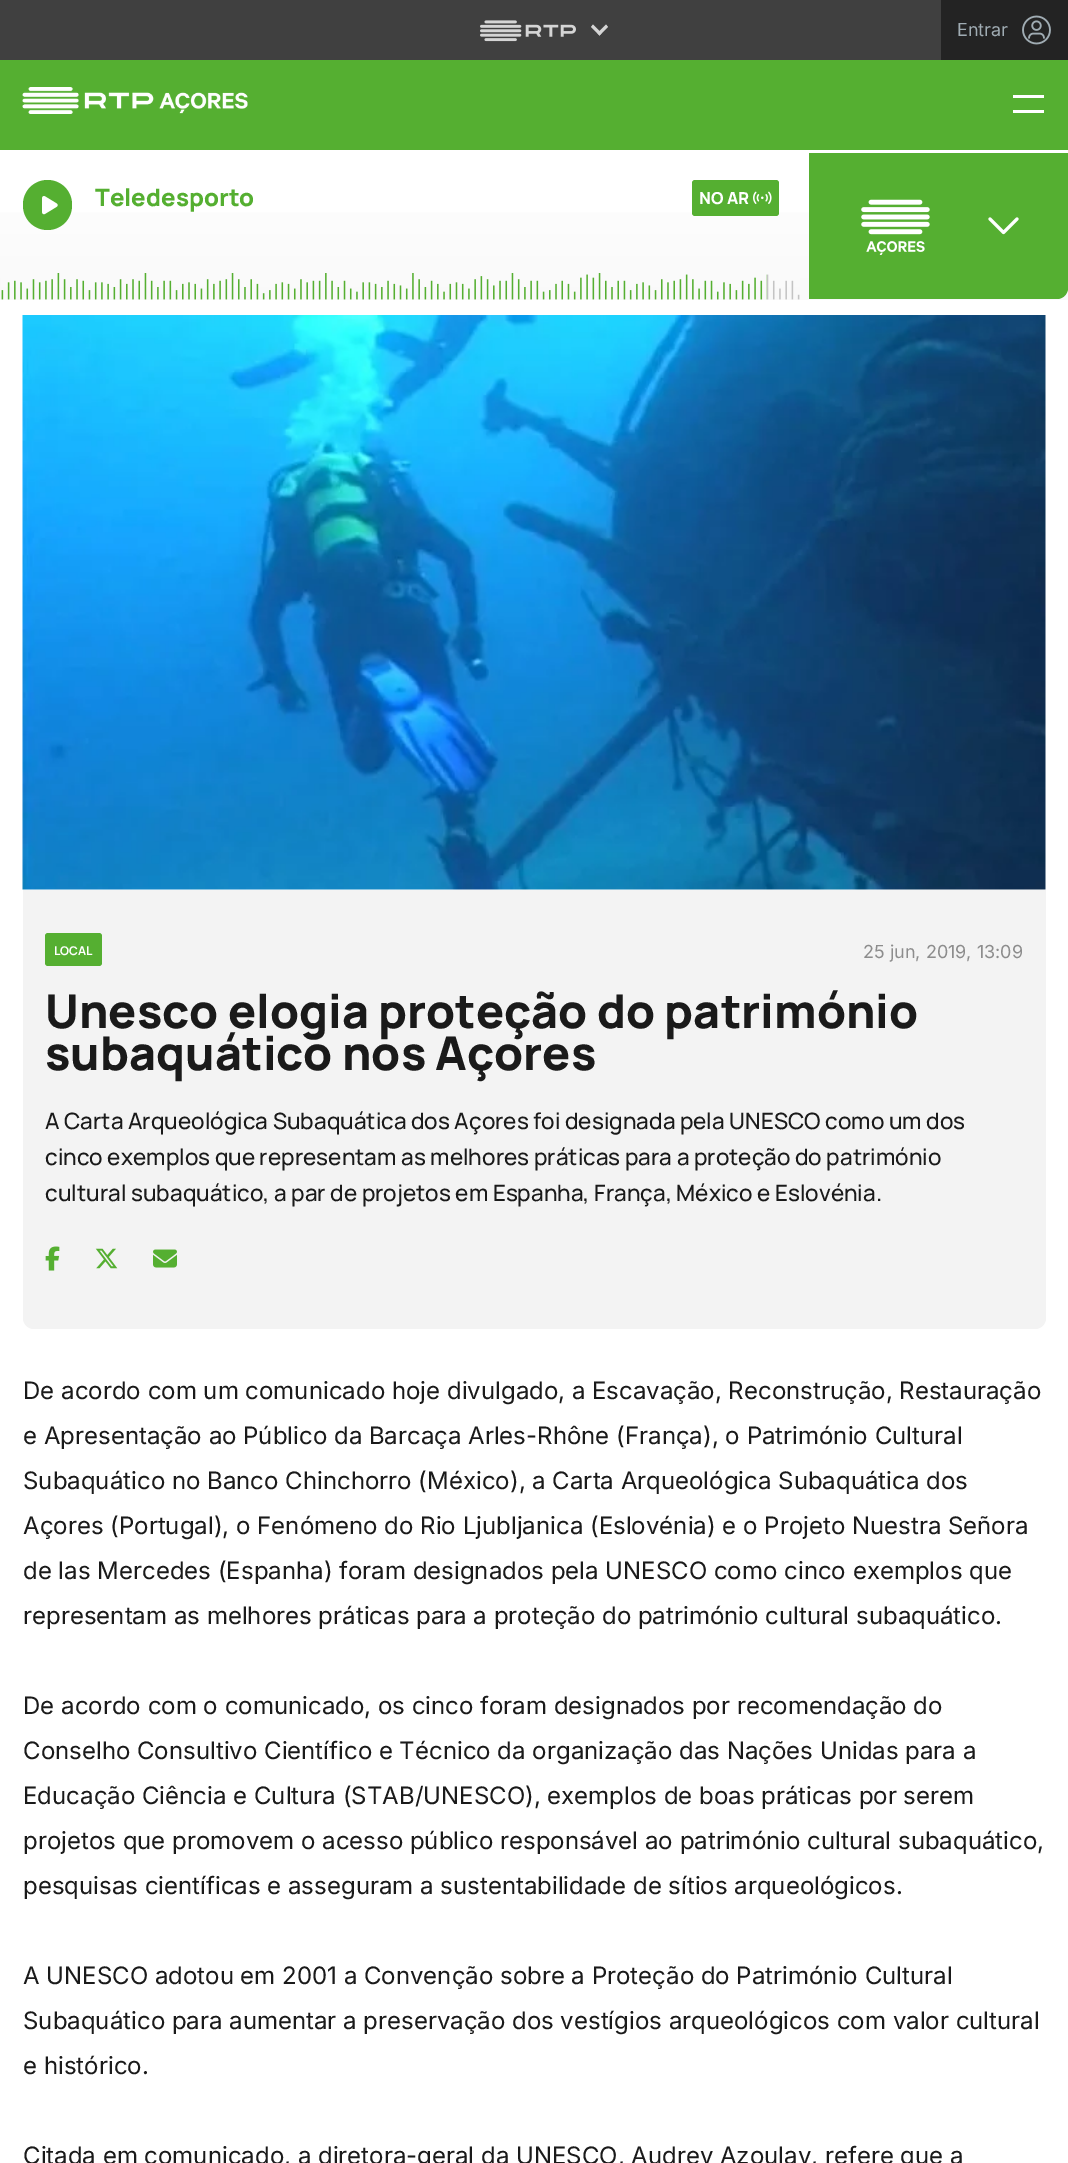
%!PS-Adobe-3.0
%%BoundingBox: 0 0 1068 2163
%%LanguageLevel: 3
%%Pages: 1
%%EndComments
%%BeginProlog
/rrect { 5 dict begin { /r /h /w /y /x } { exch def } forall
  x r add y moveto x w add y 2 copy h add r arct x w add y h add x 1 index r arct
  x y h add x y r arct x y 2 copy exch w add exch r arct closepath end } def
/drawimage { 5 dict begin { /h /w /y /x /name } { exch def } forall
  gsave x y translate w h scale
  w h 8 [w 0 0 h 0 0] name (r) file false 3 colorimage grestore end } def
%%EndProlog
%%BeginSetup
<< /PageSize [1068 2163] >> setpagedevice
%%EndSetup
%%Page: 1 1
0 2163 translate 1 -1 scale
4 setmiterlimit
1 setgray
0 0 1068 2163 rectfill
0.251 setgray
0 0 941 60 rectfill
(images/1.raw) 480 20 96 22 drawimage
0.835 setgray
newpath 606 24.5 moveto 608 27 lineto 599.5 35.5 lineto 597.5 33 lineto closepath fill
newpath 593 24.5 moveto 601.5 33 lineto 599.5 35.5 lineto 591 27 lineto closepath fill
0.137 setgray
941 0 127 60 rectfill
(images/2.raw) 1022 15 29 30 drawimage
0.333 0.686 0.192 setrgbcolor
0 60 1068 90 rectfill
(images/3.raw) 22 87 226 27 drawimage
1 setgray
1013 95 31 3 rectfill
1013 110 31 3 rectfill
gsave newpath 0 212 moveto 1068 212 lineto 1068 300 lineto 0 300 lineto closepath clip newpath
<< /ShadingType 2 /ColorSpace /DeviceRGB /Coords [534 450 534 150] /Extend [true true] /Function << /FunctionType 2 /Domain [0 1] /C0 [0.953 0.953 0.953] /C1 [1 1 1] /N 1 >> >> shfill grestore
0.333 0.686 0.192 setrgbcolor
23 180 49 50 24.5 rrect fill
(images/4.raw) 42 196 16 19 drawimage
692 180 87 36 3 rrect fill
(images/5.raw) 753 191 19 13 drawimage
(images/6.raw) 1 273 799 27 drawimage
newpath 809 153 moveto 1068 153 lineto 1068 288 lineto 1068 294 1063 299 1057 299 curveto 809 299 lineto closepath fill
(images/7.raw) 861 199 69 56 drawimage
(images/8.raw) 988 217 31 18 drawimage
(images/9.raw) 22 315 1024 575 drawimage
0.953 setgray
newpath 23 890 moveto 1046 890 lineto 1046 1318 lineto 1046 1324 1041 1329 1035 1329 curveto 34 1329 lineto 28 1329 23 1324 23 1318 curveto closepath fill
0.333 0.686 0.192 setrgbcolor
45 933 57 33 3 rrect fill
(images/10.raw) 45 1246 15 25 drawimage
(images/11.raw) 95 1248 23 21 drawimage
(images/12.raw) 153 1249 24 19 drawimage
/Inter-Regular [18 0 0 -18 0 0] selectfont
0.627 0.675 0.702 setrgbcolor
957 36 moveto (Entrar) show
/Manrope-ExtraBold [24 0 0 -24 0 0] selectfont
0.333 0.686 0.192 setrgbcolor
95 206 moveto (Teledesporto) show
/Manrope-ExtraBold [16.5 0 0 -16.5 0 0] selectfont
1 setgray
699 204 moveto (NO AR) show
/Manrope-Bold [12 0 0 -12 0 0] selectfont
54 955 moveto (LOCAL) show
/Inter-Regular [18 0 0 -18 0 0] selectfont
0.553 setgray
863 958 moveto (25 jun, 2019, 13:09) show
/Manrope-ExtraBold [46.5 0 0 -46.5 0 0] selectfont
0.102 setgray
45 1028 moveto (Unesco elogia proteção do património) show
45 1070 moveto (subaquático nos Açores) show
/Manrope-Medium [22.5 0 0 -22.5 0 0] selectfont
45 1129 moveto (A Carta Arqueológica Subaquática dos Açores foi designada pela UNESCO como um dos) show
45 1165 moveto (cinco exemplos que representam as melhores práticas para a proteção do património) show
45 1201 moveto (cultural subaquático, a par de projetos em Espanha, França, México e Eslovénia.) show
/Inter-Regular [24 0 0 -24 0 0] selectfont
23 1399 moveto (De acordo com um comunicado hoje divulgado, a Escavação, Reconstrução, Restauração) show
23 1444 moveto (e Apresentação ao Público da Barcaça Arles-Rhône \(França\), o Património Cultural) show
23 1489 moveto (Subaquático no Banco Chinchorro \(México\), a Carta Arqueológica Subaquática dos) show
23 1534 moveto (Açores \(Portugal\), o Fenómeno do Rio Ljubljanica \(Eslovénia\) e o Projeto Nuestra Señora) show
23 1579 moveto (de las Mercedes \(Espanha\) foram designados pela UNESCO como cinco exemplos que) show
23 1624 moveto (representam as melhores práticas para a proteção do património cultural subaquático.) show
23 1714 moveto (De acordo com o comunicado, os cinco foram designados por recomendação do) show
23 1759 moveto (Conselho Consultivo Científico e Técnico da organização das Nações Unidas para a) show
23 1804 moveto (Educação Ciência e Cultura \(STAB/UNESCO\), exemplos de boas práticas por serem) show
23 1849 moveto (projetos que promovem o acesso público responsável ao património cultural subaquático,) show
23 1894 moveto (pesquisas científicas e asseguram a sustentabilidade de sítios arqueológicos.) show
23 1984 moveto (A UNESCO adotou em 2001 a Convenção sobre a Proteção do Património Cultural) show
23 2029 moveto (Subaquático para aumentar a preservação dos vestígios arqueológicos com valor cultural) show
23 2074 moveto (e histórico.) show
23 2164 moveto (Citada em comunicado, a diretora-geral da UNESCO, Audrey Azoulay, refere que a) show
showpage
%%EOF
